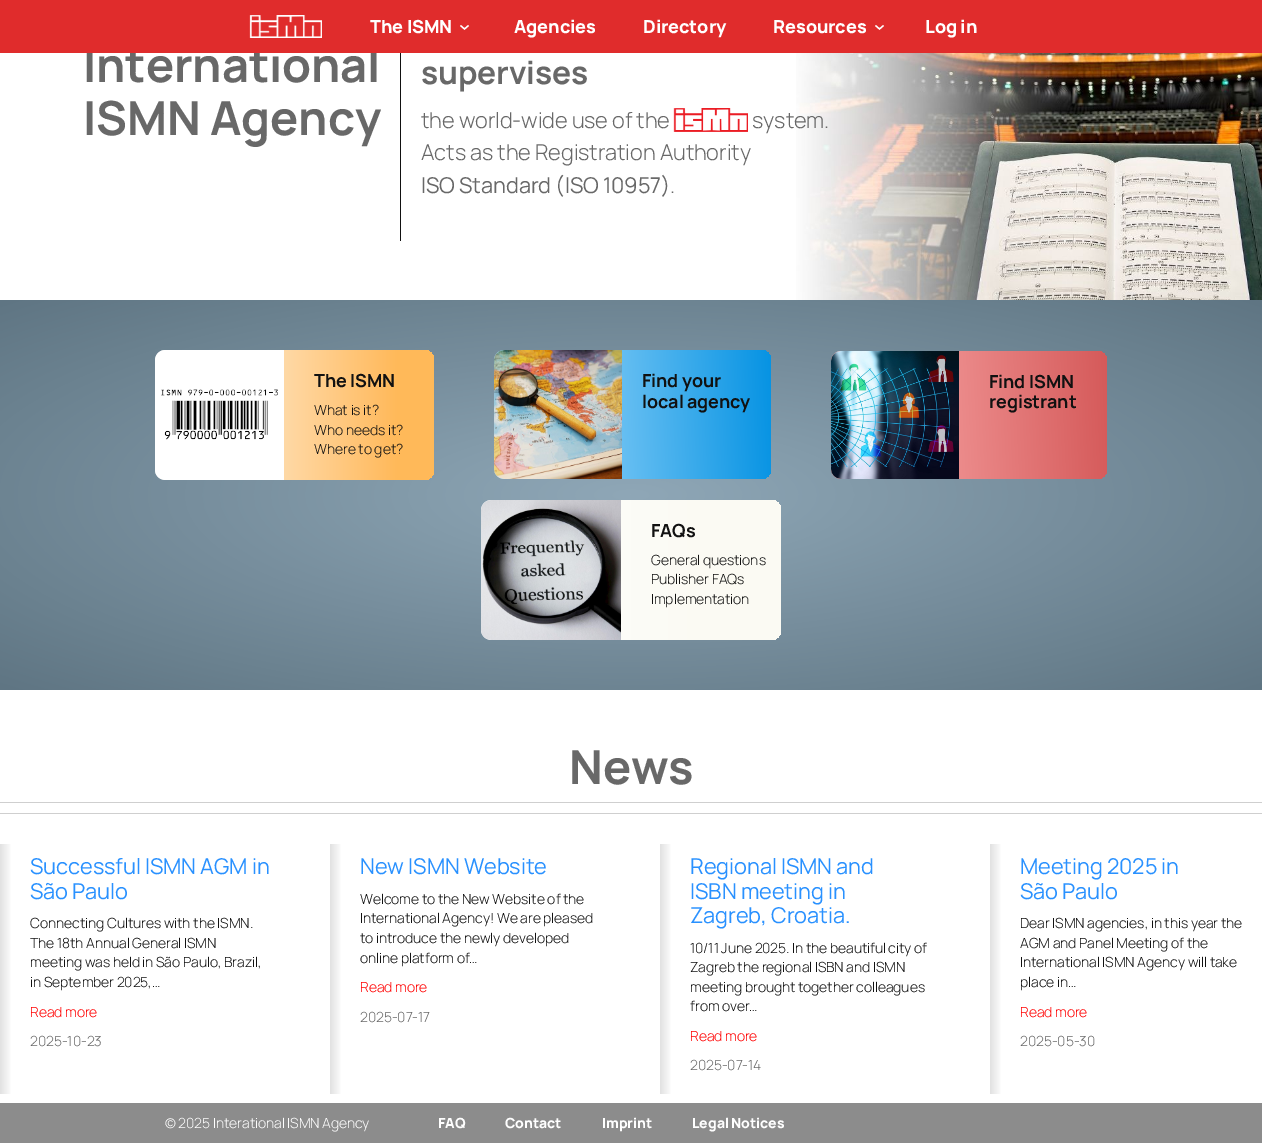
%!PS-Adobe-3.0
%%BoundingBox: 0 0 1262 1143
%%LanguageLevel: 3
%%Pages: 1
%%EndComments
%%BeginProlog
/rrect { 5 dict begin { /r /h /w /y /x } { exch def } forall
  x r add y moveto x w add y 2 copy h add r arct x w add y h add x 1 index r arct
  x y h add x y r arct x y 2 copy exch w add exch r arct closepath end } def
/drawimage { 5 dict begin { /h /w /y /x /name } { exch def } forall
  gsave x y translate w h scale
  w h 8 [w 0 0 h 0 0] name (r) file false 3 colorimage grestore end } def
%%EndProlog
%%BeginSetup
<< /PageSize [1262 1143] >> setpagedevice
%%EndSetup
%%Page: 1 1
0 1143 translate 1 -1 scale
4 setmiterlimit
1 setgray
0 0 1262 1143 rectfill
(images/2.raw) 796 53 466 247 drawimage
0.067 setgray
400 53 1 188 rectfill
(images/3.raw) 673 108 75 24 drawimage
gsave newpath 0 300 moveto 1262 300 lineto 1262 690 lineto 0 690 lineto closepath clip newpath 631 495 translate 892 276 scale
<< /ShadingType 3 /ColorSpace /DeviceRGB /Coords [0 0 0 0 0 1] /Extend [true true] /Function << /FunctionType 2 /Domain [0 1] /C0 [0.561 0.655 0.718] /C1 [0.373 0.459 0.514] /N 1 >> >> shfill grestore
gsave 155 350 279 130 10 rrect clip newpath
<< /ShadingType 2 /ColorSpace /DeviceRGB /Coords [155 415 434 415] /Extend [true true] /Function << /FunctionType 3 /Domain [0 1] /Functions [<< /FunctionType 2 /Domain [0 1] /C0 [0.996 0.996 0.996] /C1 [1 0.725 0.349] /N 1 >> << /FunctionType 2 /Domain [0 1] /C0 [1 0.725 0.349] /C1 [1 0.725 0.349] /N 1 >>] /Bounds [0.87] /Encode [0 1 0 1] >> >> shfill grestore
(images/4.raw) 155 350 129 130 drawimage
gsave 494 350 277 129 10 rrect clip newpath
<< /ShadingType 2 /ColorSpace /DeviceRGB /Coords [774 407 491 422] /Extend [true true] /Function << /FunctionType 2 /Domain [0 1] /C0 [0.024 0.576 0.89] /C1 [0.722 0.894 1] /N 1 >> >> shfill grestore
(images/5.raw) 494 350 128 129 drawimage
gsave 831 351 276 128 10 rrect clip newpath
<< /ShadingType 2 /ColorSpace /DeviceRGB /Coords [1110 408 828 422] /Extend [true true] /Function << /FunctionType 2 /Domain [0 1] /C0 [0.835 0.353 0.353] /C1 [1 0.706 0.706] /N 1 >> >> shfill grestore
(images/6.raw) 831 351 128 128 drawimage
gsave 481 500 300 140 10 rrect clip newpath
<< /ShadingType 2 /ColorSpace /DeviceRGB /Coords [481 570 781 570] /Extend [true true] /Function << /FunctionType 3 /Domain [0 1] /Functions [<< /FunctionType 2 /Domain [0 1] /C0 [1 1 1] /C1 [0.984 0.98 0.953] /N 1 >> << /FunctionType 2 /Domain [0 1] /C0 [0.984 0.98 0.953] /C1 [0.984 0.98 0.953] /N 1 >>] /Bounds [0.78] /Encode [0 1 0 1] >> >> shfill grestore
(images/7.raw) 481 500 140 140 drawimage
0.812 setgray
0 802 1262 1 rectfill
0 813 1262 1 rectfill
gsave newpath 0 844 moveto 11 844 lineto 11 1094 lineto 0 1094 lineto closepath clip newpath
<< /ShadingType 2 /ColorSpace /DeviceRGB /Coords [0 969 300 969] /Extend [true true] /Function << /FunctionType 3 /Domain [0 1] /Functions [<< /FunctionType 2 /Domain [0 1] /C0 [0.882 0.882 0.882] /C1 [1 1 1] /N 1 >> << /FunctionType 2 /Domain [0 1] /C0 [1 1 1] /C1 [1 1 1] /N 1 >>] /Bounds [0.04] /Encode [0 1 0 1] >> >> shfill grestore
gsave newpath 330 844 moveto 341 844 lineto 341 1094 lineto 330 1094 lineto closepath clip newpath
<< /ShadingType 2 /ColorSpace /DeviceRGB /Coords [330 969 630 969] /Extend [true true] /Function << /FunctionType 3 /Domain [0 1] /Functions [<< /FunctionType 2 /Domain [0 1] /C0 [0.882 0.882 0.882] /C1 [1 1 1] /N 1 >> << /FunctionType 2 /Domain [0 1] /C0 [1 1 1] /C1 [1 1 1] /N 1 >>] /Bounds [0.04] /Encode [0 1 0 1] >> >> shfill grestore
gsave newpath 660 844 moveto 671 844 lineto 671 1094 lineto 660 1094 lineto closepath clip newpath
<< /ShadingType 2 /ColorSpace /DeviceRGB /Coords [660 969 960 969] /Extend [true true] /Function << /FunctionType 3 /Domain [0 1] /Functions [<< /FunctionType 2 /Domain [0 1] /C0 [0.882 0.882 0.882] /C1 [1 1 1] /N 1 >> << /FunctionType 2 /Domain [0 1] /C0 [1 1 1] /C1 [1 1 1] /N 1 >>] /Bounds [0.04] /Encode [0 1 0 1] >> >> shfill grestore
gsave newpath 990 844 moveto 1001 844 lineto 1001 1094 lineto 990 1094 lineto closepath clip newpath
<< /ShadingType 2 /ColorSpace /DeviceRGB /Coords [990 969 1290 969] /Extend [true true] /Function << /FunctionType 3 /Domain [0 1] /Functions [<< /FunctionType 2 /Domain [0 1] /C0 [0.882 0.882 0.882] /C1 [1 1 1] /N 1 >> << /FunctionType 2 /Domain [0 1] /C0 [1 1 1] /C1 [1 1 1] /N 1 >>] /Bounds [0.04] /Encode [0 1 0 1] >> >> shfill grestore
0.549 setgray
0 1103 1262 40 rectfill
/Manrope-Bold [47 0 0 -47 0 0] selectfont
0.408 setgray
83 82 moveto -0.1 0 (International) ashow
0.878 0.173 0.173 setrgbcolor
0 0 1262 53 rectfill
/Manrope-ExtraBold [18 0 0 -18 0 0] selectfont
1 setgray
773 33 moveto -0.1 0 (Resources) ashow
643 33 moveto -0.1 0 (Directory) ashow
514 33 moveto -0.1 0 (Agencies) ashow
370 33 moveto -0.1 0 (The ISMN) ashow
1.3 setlinewidth
newpath 875.5 25.5 moveto 879.5 29 lineto 883.5 25.5 lineto stroke
newpath 460.5 25.5 moveto 464.5 29 lineto 468.5 25.5 lineto stroke
(images/1.raw) 249 15 73 23 drawimage
925 33 moveto -0.1 0 (Log in) ashow
/Manrope-Bold [47 0 0 -47 0 0] selectfont
0.408 setgray
83 135 moveto -0.1 0 (ISMN Agency) ashow
/Manrope-Bold [31.75 0 0 -31.75 0 0] selectfont
421 84 moveto -0.1 0 (supervises) ashow
/Manrope-Light [21.75 0 0 -21.75 0 0] selectfont
421 128 moveto -0.1 0 (the world-wide use of the) ashow
752 128 moveto -0.1 0 (system.) ashow
421 160 moveto -0.1 0 (Acts as the Registration Authority) ashow
/Manrope-Regular [21.75 0 0 -21.75 0 0] selectfont
421 193 moveto -0.1 0 (ISO Standard \(ISO 10957\)) ashow
/Manrope-Light [21.75 0 0 -21.75 0 0] selectfont
670 193 moveto -0.1 0 (.) ashow
/Manrope-Bold [18 0 0 -18 0 0] selectfont
0.067 setgray
314 387 moveto -0.1 0 (The ISMN) ashow
/Manrope-Light [14 0 0 -14 0 0] selectfont
314 415 moveto -0.1 0 (What is it?) ashow
314 435 moveto -0.1 0 (Who needs it?) ashow
314 454 moveto -0.1 0 (Where to get?) ashow
/Manrope-Bold [18 0 0 -18 0 0] selectfont
642 387 moveto -0.1 0 (Find your) ashow
642 408 moveto -0.1 0 (local agency) ashow
989 388 moveto -0.1 0 (Find ISMN) ashow
989 408 moveto -0.1 0 (registrant) ashow
651 537 moveto -0.1 0 (FAQs) ashow
/Manrope-Light [14 0 0 -14 0 0] selectfont
651 565 moveto -0.1 0 (General questions) ashow
651 584 moveto -0.1 0 (Publisher FAQs) ashow
651 604 moveto -0.1 0 (Implementation) ashow
/Manrope-Bold [47 0 0 -47 0 0] selectfont
0.408 setgray
569 784 moveto -0.1 0 (News) ashow
/Manrope-Regular [21.75 0 0 -21.75 0 0] selectfont
0.161 0.569 1 setrgbcolor
30 874 moveto -0.1 0 (Successful ISMN AGM in) ashow
30 899 moveto -0.1 0 (São Paulo) ashow
/Manrope-Light [14 0 0 -14 0 0] selectfont
0.067 setgray
30 928 moveto -0.1 0 (Connecting Cultures with the ISMN.) ashow
30 948 moveto -0.1 0 (The 18th Annual General ISMN) ashow
30 967 moveto -0.1 0 (meeting was held in São Paulo, Brazil,) ashow
30 987 moveto -0.1 0 (in September 2025,…) ashow
1 0 0 setrgbcolor
30 1017 moveto -0.1 0 (Read more) ashow
0.408 setgray
30 1046 moveto -0.1 0 (2025-10-23) ashow
/Manrope-Regular [21.75 0 0 -21.75 0 0] selectfont
0.161 0.569 1 setrgbcolor
360 874 moveto -0.1 0 (New ISMN Website) ashow
/Manrope-Light [14 0 0 -14 0 0] selectfont
0.067 setgray
360 904 moveto -0.1 0 (Welcome to the New Website of the) ashow
360 923 moveto -0.1 0 (International Agency! We are pleased) ashow
360 943 moveto -0.1 0 (to introduce the newly developed) ashow
360 963 moveto -0.1 0 (online platform of…) ashow
1 0 0 setrgbcolor
360 992 moveto -0.1 0 (Read more) ashow
0.408 setgray
360 1022 moveto -0.1 0 (2025-07-17) ashow
/Manrope-Regular [21.75 0 0 -21.75 0 0] selectfont
0.161 0.569 1 setrgbcolor
690 874 moveto -0.1 0 (Regional ISMN and) ashow
690 899 moveto -0.1 0 (ISBN meeting in) ashow
690 923 moveto -0.1 0 (Zagreb, Croatia.) ashow
/Manrope-Light [14 0 0 -14 0 0] selectfont
0.067 setgray
690 953 moveto -0.1 0 (10/11 June 2025. In the beautiful city of) ashow
690 972 moveto -0.1 0 (Zagreb the regional ISBN and ISMN) ashow
690 992 moveto -0.1 0 (meeting brought together colleagues) ashow
690 1011 moveto -0.1 0 (from over…) ashow
1 0 0 setrgbcolor
690 1041 moveto -0.1 0 (Read more) ashow
0.408 setgray
690 1070 moveto -0.1 0 (2025-07-14) ashow
/Manrope-Regular [21.75 0 0 -21.75 0 0] selectfont
0.161 0.569 1 setrgbcolor
1020 874 moveto -0.1 0 (Meeting 2025 in) ashow
1020 899 moveto -0.1 0 (São Paulo) ashow
/Manrope-Light [14 0 0 -14 0 0] selectfont
0.067 setgray
1020 928 moveto -0.1 0 (Dear ISMN agencies, in this year the) ashow
1020 948 moveto -0.1 0 (AGM and Panel Meeting of the) ashow
1020 967 moveto -0.1 0 (International ISMN Agency will take) ashow
1020 987 moveto -0.1 0 (place in…) ashow
1 0 0 setrgbcolor
1020 1017 moveto -0.1 0 (Read more) ashow
0.408 setgray
1020 1046 moveto -0.1 0 (2025-05-30) ashow
1 setgray
165 1128 moveto -0.1 0 (© 2025 Interational ISMN Agency) ashow
/Manrope-ExtraBold [14 0 0 -14 0 0] selectfont
438 1128 moveto -0.1 0 (FAQ) ashow
505 1128 moveto -0.1 0 (Contact) ashow
602 1128 moveto -0.1 0 (Imprint) ashow
692 1128 moveto -0.1 0 (Legal Notices) ashow
showpage
%%EOF
